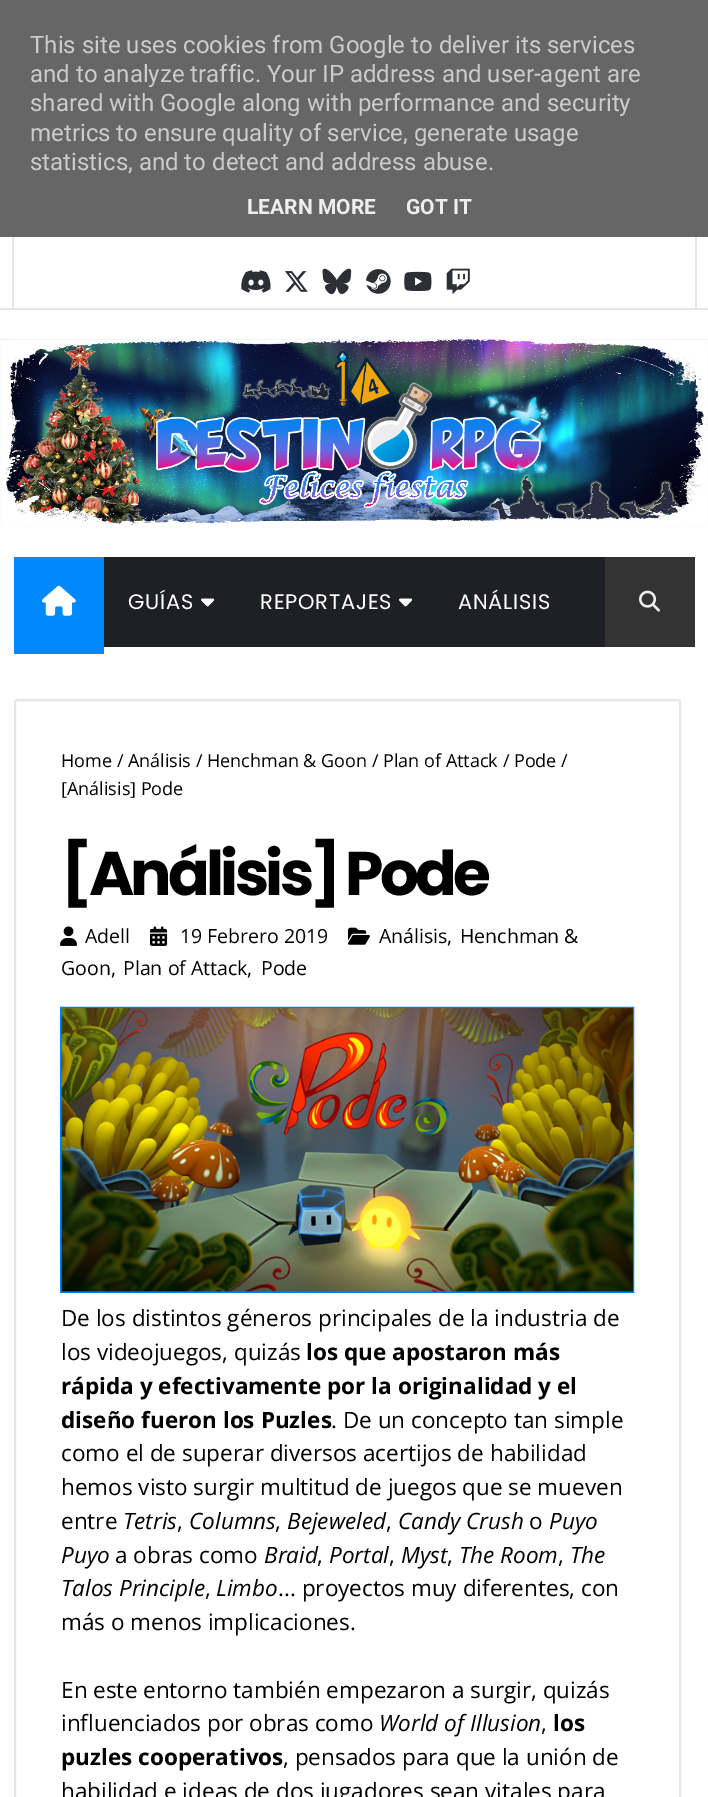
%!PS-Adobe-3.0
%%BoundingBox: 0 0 708 1797
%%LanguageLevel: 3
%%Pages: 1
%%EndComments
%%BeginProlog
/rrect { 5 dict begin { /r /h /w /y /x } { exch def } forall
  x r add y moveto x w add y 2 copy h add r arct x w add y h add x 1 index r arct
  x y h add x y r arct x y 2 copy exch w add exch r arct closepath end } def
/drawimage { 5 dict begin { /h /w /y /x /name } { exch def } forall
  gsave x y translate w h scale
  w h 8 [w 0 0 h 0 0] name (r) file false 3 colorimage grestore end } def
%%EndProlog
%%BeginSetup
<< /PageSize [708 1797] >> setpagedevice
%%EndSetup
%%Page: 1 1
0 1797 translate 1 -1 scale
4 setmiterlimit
1 setgray
0 0 708 1797 rectfill
0.4 setgray
0 0 708 237 rectfill
0.902 setgray
0 308 708 2 rectfill
695 237 2 71 rectfill
12 237 2 71 rectfill
(images/1.raw) 241 270 30 23 drawimage
(images/2.raw) 285 271 23 21 drawimage
(images/3.raw) 322 268 30 27 drawimage
(images/4.raw) 366 269 25 25 drawimage
(images/5.raw) 404 271 28 20 drawimage
(images/6.raw) 446 268 24 26 drawimage
(images/7.raw) 0 339 708 188 drawimage
0.122 0.125 0.141 setrgbcolor
104 557 501 90 rectfill
0 0.533 1 setrgbcolor
14 557 90 97 rectfill
(images/8.raw) 42 585 34 31 drawimage
(images/9.raw) 201 598 14 9 drawimage
(images/9.raw) 399 598 14 9 drawimage
0.2 setgray
605 557 90 90 rectfill
(images/10.raw) 639 590 21 22 drawimage
0.902 setgray
2 setlinewidth
15 700 665 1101 2 rrect stroke
(images/11.raw) 60 926 18 20 drawimage
(images/12.raw) 150 926 18 20 drawimage
(images/13.raw) 348 927 22 18 drawimage
(images/14.raw) 60 1006 575 287 drawimage
/Roboto-Regular [24 0 0 -24 0 0] selectfont
0.8 setgray
30 53 moveto (This site uses cookies from Google to deliver its services) show
30 82 moveto (and to analyze traffic. Your IP address and user-agent are) show
30 111 moveto (shared with Google along with performance and security) show
30 141 moveto (metrics to ensure quality of service, generate usage) show
30 170 moveto (statistics, and to detect and address abuse.) show
/Roboto-Bold [21 0 0 -21 0 0] selectfont
0.933 setgray
247 214 moveto (LEARN MORE) show
406 214 moveto (GOT IT) show
/Poppins-Regular [21 0 0 -21 0 0] selectfont
1 setgray
128 609 moveto 0.75 0 (GUÍAS) ashow
260 609 moveto 0.75 0 (REPORTAJES) ashow
458 609 moveto 0.75 0 (ANÁLISIS) ashow
/OpenSans-Regular [18 0 0 -18 0 0] selectfont
0 setgray
61 767 moveto (Home / Análisis / Henchman & Goon / Plan of Attack / Pode /) show
61 795 moveto ([Análisis] Pode) show
/Poppins-Bold [61.5 0 0 -61.5 0 0] selectfont
61 895 moveto -2 0 32 -3.75 0 ([Análisis] Pode) awidthshow
/OpenSans-Regular [19.5 0 0 -19.5 0 0] selectfont
85 943 moveto (Adell) show
180 943 moveto (19 Febrero 2019) show
379 943 moveto (Análisis,) show
460 943 moveto (Henchman &) show
61 975 moveto (Goon,) show
123 975 moveto (Plan of Attack,) show
261 975 moveto (Pode) show
/OpenSans-Regular [22.5 0 0 -22.5 0 0] selectfont
61 1326 moveto (De los distintos géneros principales de la industria de) show
61 1360 moveto (los videojuegos, quizás) show
/OpenSans-Bold [22.5 0 0 -22.5 0 0] selectfont
306 1360 moveto (los que apostaron más) show
61 1394 moveto (rápida y efectivamente por la originalidad y el) show
61 1428 moveto (diseño fueron los Puzles) show
/OpenSans-Regular [22.5 0 0 -22.5 0 0] selectfont
331 1428 moveto (. De un concepto tan simple) show
61 1461 moveto (como el de superar diversos acertijos de habilidad) show
61 1495 moveto (hemos visto surgir multitud de juegos que se mueven) show
61 1529 moveto (entre) show
/OpenSans-Italic [22.5 0 0 -22.5 0 0] selectfont
123 1529 moveto (Tetris) show
/OpenSans-Regular [22.5 0 0 -22.5 0 0] selectfont
177 1529 moveto (,) show
/OpenSans-Italic [22.5 0 0 -22.5 0 0] selectfont
189 1529 moveto (Columns) show
/OpenSans-Regular [22.5 0 0 -22.5 0 0] selectfont
275 1529 moveto (,) show
/OpenSans-Italic [22.5 0 0 -22.5 0 0] selectfont
287 1529 moveto (Bejeweled) show
/OpenSans-Regular [22.5 0 0 -22.5 0 0] selectfont
386 1529 moveto (,) show
/OpenSans-Italic [22.5 0 0 -22.5 0 0] selectfont
398 1529 moveto (Candy Crush) show
/OpenSans-Regular [22.5 0 0 -22.5 0 0] selectfont
529 1529 moveto (o) show
/OpenSans-Italic [22.5 0 0 -22.5 0 0] selectfont
549 1529 moveto (Puyo) show
61 1563 moveto (Puyo) show
/OpenSans-Regular [22.5 0 0 -22.5 0 0] selectfont
115 1563 moveto (a obras como) show
/OpenSans-Italic [22.5 0 0 -22.5 0 0] selectfont
264 1563 moveto (Braid) show
/OpenSans-Regular [22.5 0 0 -22.5 0 0] selectfont
317 1563 moveto (,) show
/OpenSans-Italic [22.5 0 0 -22.5 0 0] selectfont
329 1563 moveto (Portal) show
/OpenSans-Regular [22.5 0 0 -22.5 0 0] selectfont
389 1563 moveto (,) show
/OpenSans-Italic [22.5 0 0 -22.5 0 0] selectfont
401 1563 moveto (Myst) show
/OpenSans-Regular [22.5 0 0 -22.5 0 0] selectfont
447 1563 moveto (,) show
/OpenSans-Italic [22.5 0 0 -22.5 0 0] selectfont
459 1563 moveto (The Room) show
/OpenSans-Regular [22.5 0 0 -22.5 0 0] selectfont
558 1563 moveto (,) show
/OpenSans-Italic [22.5 0 0 -22.5 0 0] selectfont
570 1563 moveto (The) show
61 1596 moveto (Talos Principle) show
/OpenSans-Regular [22.5 0 0 -22.5 0 0] selectfont
205 1596 moveto (,) show
/OpenSans-Italic [22.5 0 0 -22.5 0 0] selectfont
216 1596 moveto (Limbo) show
/OpenSans-Regular [22.5 0 0 -22.5 0 0] selectfont
278 1596 moveto (... proyectos muy diferentes, con) show
61 1630 moveto (más o menos implicaciones.) show
61 1698 moveto (En este entorno también empezaron a surgir, quizás) show
61 1731 moveto (influenciados por obras como) show
/OpenSans-Italic [22.5 0 0 -22.5 0 0] selectfont
379 1731 moveto (World of Illusion) show
/OpenSans-Regular [22.5 0 0 -22.5 0 0] selectfont
541 1731 moveto (,) show
/OpenSans-Bold [22.5 0 0 -22.5 0 0] selectfont
553 1731 moveto (los) show
61 1765 moveto (puzles cooperativos) show
/OpenSans-Regular [22.5 0 0 -22.5 0 0] selectfont
283 1765 moveto (, pensados para que la unión de) show
61 1799 moveto (habilidad e ideas de dos jugadores sean vitales para) show
showpage
%%EOF
